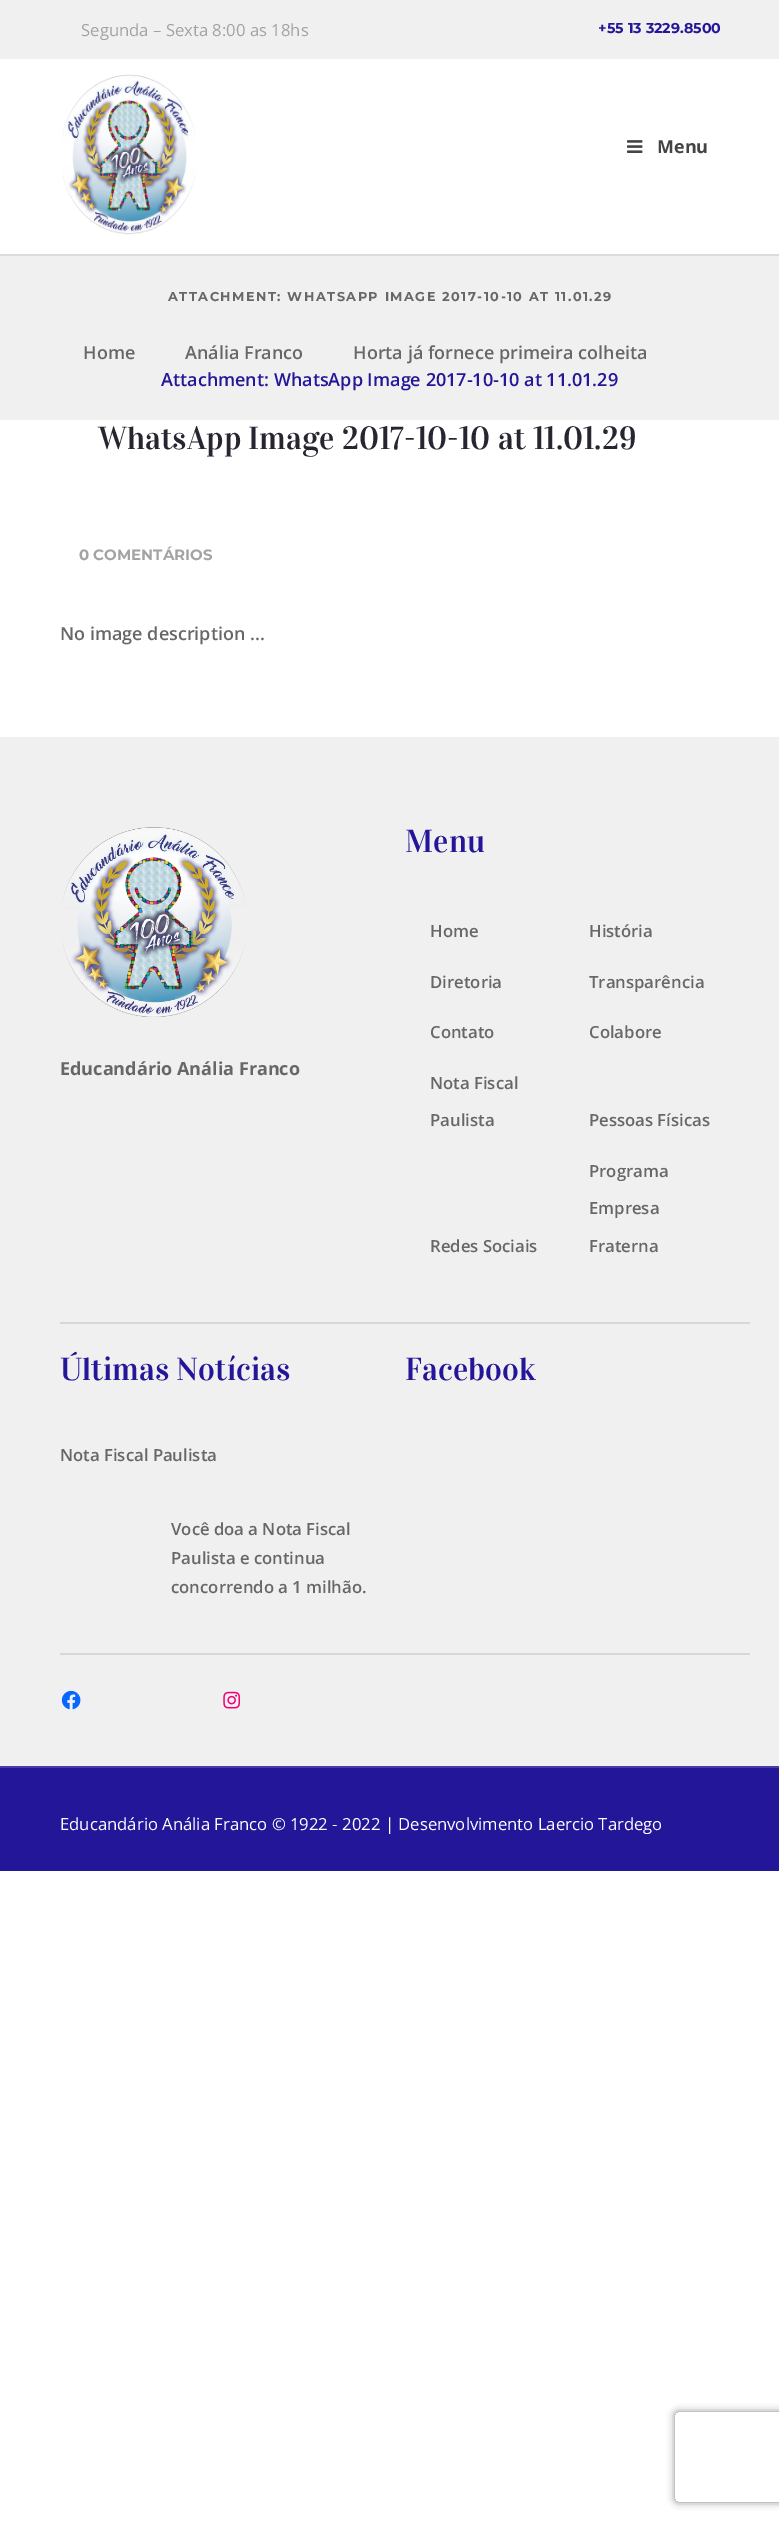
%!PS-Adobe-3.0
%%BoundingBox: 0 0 779 2522
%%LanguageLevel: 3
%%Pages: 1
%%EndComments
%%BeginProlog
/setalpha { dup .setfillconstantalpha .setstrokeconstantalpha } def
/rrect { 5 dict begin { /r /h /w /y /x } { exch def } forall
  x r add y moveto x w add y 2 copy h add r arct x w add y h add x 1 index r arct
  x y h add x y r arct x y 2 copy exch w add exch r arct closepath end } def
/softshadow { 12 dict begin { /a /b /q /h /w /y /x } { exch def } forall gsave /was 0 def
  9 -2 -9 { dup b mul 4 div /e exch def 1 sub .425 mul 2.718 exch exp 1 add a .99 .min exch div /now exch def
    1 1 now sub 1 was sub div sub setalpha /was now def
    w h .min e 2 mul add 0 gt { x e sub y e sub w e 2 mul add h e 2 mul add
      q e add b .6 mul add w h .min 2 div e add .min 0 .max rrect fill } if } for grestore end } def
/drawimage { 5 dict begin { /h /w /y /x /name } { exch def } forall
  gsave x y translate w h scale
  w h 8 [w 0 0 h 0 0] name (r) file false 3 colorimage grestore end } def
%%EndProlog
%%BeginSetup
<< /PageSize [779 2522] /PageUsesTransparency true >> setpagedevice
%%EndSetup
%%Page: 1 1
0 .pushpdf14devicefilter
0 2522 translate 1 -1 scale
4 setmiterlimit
1 setgray
0 0 779 2522 rectfill
0.941 setgray
0 0 779 59 rectfill
(images/1.raw) 62 74 134 161 drawimage
(images/2.raw) 627 140 16 13 drawimage
0 256 779 164 rectfill
0.863 0.863 0.867 setrgbcolor
0 254 779 2 rectfill
0.941 setgray
0 737 779 1029 rectfill
(images/3.raw) 62 827 183 190 drawimage
0.843 setgray
60 1322 690 2 rectfill
60 1653 690 2 rectfill
(images/4.raw) 61 1690 20 20 drawimage
(images/5.raw) 223 1691 17 18 drawimage
0.137 0.086 0.596 setrgbcolor
0 1768 779 103 rectfill
0.278 0.239 0.647 setrgbcolor
0 1766 779 2 rectfill
gsave
newpath 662 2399 moveto 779 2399 lineto 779 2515 lineto 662 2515 lineto closepath 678 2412 moveto 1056 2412 lineto 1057.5 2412 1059 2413.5 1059 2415 curveto 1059 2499 lineto 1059 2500.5 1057.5 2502 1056 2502 curveto 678 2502 lineto 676.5 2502 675 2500.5 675 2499 curveto 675 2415 lineto 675 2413.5 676.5 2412 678 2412 curveto closepath eoclip newpath
0.502 setgray
675 2412 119 90 3 4 1 softshadow
grestore
/OpenSans-Regular [16.7 0 0 -16.7 0 0] selectfont
0.639 0.639 0.651 setrgbcolor
81 36 moveto (Segunda – Sexta 8:00 as 18hs) show
/Montserrat-Bold [14.25 0 0 -14.25 0 0] selectfont
0.137 0.086 0.596 setrgbcolor
598 33 moveto (+55 13 3229.8500) show
/OpenSans-Bold [18 0 0 -18 0 0] selectfont
0.267 setgray
657 153 moveto (Menu) show
/Montserrat-Bold [12.85 0 0 -12.85 0 0] selectfont
0.404 setgray
168 301 moveto 1.5 0 (ATTACHMENT: WHATSAPP IMAGE 2017-10-10 AT 11.01.29) ashow
/OpenSans-SemiBold [18 0 0 -18 0 0] selectfont
83 359 moveto (Home) show
185 359 moveto (Anália Franco) show
353 359 moveto (Horta já fornece primeira colheita) show
0.137 0.086 0.596 setrgbcolor
161 386 moveto (Attachment: WhatsApp Image 2017-10-10 at 11.01.29) show
/Vidaloka-Regular [32.1 0 0 -32.1 0 0] selectfont
0.153 0.145 0.188 setrgbcolor
98 449 moveto (WhatsApp Image 2017-10-10 at 11.01.29) show
/Montserrat-Bold [15 0 0 -15 0 0] selectfont
0.639 0.639 0.651 setrgbcolor
79 560 moveto (0 COMENTÁRIOS) show
/OpenSans-SemiBold [18 0 0 -18 0 0] selectfont
0.404 setgray
60 640 moveto (No image description ...) show
/OpenSans-Bold [18 0 0 -18 0 0] selectfont
60 1075 moveto (Educandário Anália Franco) show
/Vidaloka-Regular [32.1 0 0 -32.1 0 0] selectfont
0.137 0.086 0.596 setrgbcolor
405 852 moveto (Menu) show
/OpenSans-SemiBold [16.7 0 0 -16.7 0 0] selectfont
0.404 setgray
430 937 moveto (Home) show
589 937 moveto (História) show
430 988 moveto (Diretoria) show
589 988 moveto (Transparência) show
430 1038 moveto (Contato) show
589 1038 moveto (Colabore) show
430 1089 moveto (Nota Fiscal) show
430 1126 moveto (Paulista) show
589 1126 moveto (Pessoas Físicas) show
430 1252 moveto (Redes Sociais) show
589 1177 moveto (Programa) show
589 1214 moveto (Empresa) show
589 1252 moveto (Fraterna) show
/Vidaloka-Regular [32.1 0 0 -32.1 0 0] selectfont
0.137 0.086 0.596 setrgbcolor
60 1380 moveto (Últimas Notícias) show
/OpenSans-SemiBold [16.7 0 0 -16.7 0 0] selectfont
0.404 setgray
60 1461 moveto (Nota Fiscal Paulista) show
171 1535 moveto (Você doa a Nota Fiscal) show
171 1564 moveto (Paulista e continua) show
171 1593 moveto (concorrendo a 1 milhão.) show
/Vidaloka-Regular [32.1 0 0 -32.1 0 0] selectfont
0.137 0.086 0.596 setrgbcolor
405 1380 moveto (Facebook) show
/OpenSans-Regular [16.7 0 0 -16.7 0 0] selectfont
1 setgray
60 1830 moveto (Educandário Anália Franco © 1922 - 2022 | Desenvolvimento Laercio Tardego) show
.poppdf14devicefilter showpage
%%EOF
